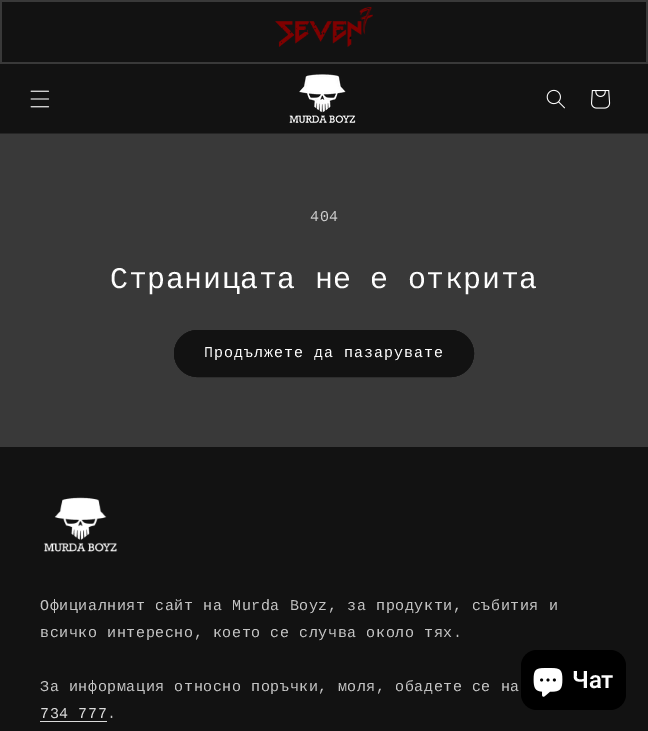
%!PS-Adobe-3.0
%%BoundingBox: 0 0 648 731
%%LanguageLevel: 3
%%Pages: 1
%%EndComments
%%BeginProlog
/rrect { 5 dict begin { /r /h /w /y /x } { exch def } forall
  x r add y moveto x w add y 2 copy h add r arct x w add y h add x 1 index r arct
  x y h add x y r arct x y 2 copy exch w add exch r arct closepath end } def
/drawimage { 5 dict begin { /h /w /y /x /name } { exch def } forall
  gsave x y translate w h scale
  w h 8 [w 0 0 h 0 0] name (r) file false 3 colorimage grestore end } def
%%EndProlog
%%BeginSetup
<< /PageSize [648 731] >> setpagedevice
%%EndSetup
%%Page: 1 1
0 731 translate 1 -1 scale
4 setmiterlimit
0.224 setgray
0 0 648 731 rectfill
0.071 setgray
2 2 644 60 rectfill
(images/1.raw) 275 7 98 40 drawimage
0 64 648 69 rectfill
0.145 setgray
0 133 648 1 rectfill
(images/2.raw) 30 90 20 18 drawimage
(images/3.raw) 289 74 67 49 drawimage
(images/4.raw) 546 89 19 20 drawimage
(images/5.raw) 591 90 20 19 drawimage
0.071 setgray
174 330 300 47 23.5 rrect fill
174.5 330.5 299 46 23 rrect stroke
0 447 648 284 rectfill
(images/6.raw) 43 497 75 55 drawimage
0.859 setgray
40 721 67 1 rectfill
0 setgray
521 650 105 60 16 rrect fill
(images/7.raw) 533 668 30 29 drawimage
/LiberationMono-Regular [15 0 0 -15 0 0] selectfont
0.8 setgray
310 221 moveto 0.6 0 (404) ashow
/LiberationMono-Regular [30 0 0 -30 0 0] selectfont
0.992 setgray
110 288 moveto 0.6 0 (Страницата не е открита) ashow
/LiberationMono-Regular [15 0 0 -15 0 0] selectfont
204 357 moveto 1 0 (Продължете да пазарувате) ashow
0.769 setgray
40 610 moveto 0.6 0 (Официалният сайт на Murda Boyz, за продукти, събития и) ashow
40 637 moveto 0.6 0 (всичко интересно, което се случва около тях.) ashow
40 691 moveto 0.6 0 (За информация относно поръчки, моля, обадете се на) ashow
0.859 setgray
40 718 moveto 0.6 0 (734 777) ashow
0.769 setgray
107 718 moveto 0.6 0 (.) ashow
/Roboto-SemiBold [24 0 0 -24 0 0] selectfont
0.992 setgray
572 688 moveto (Чат) show
showpage
%%EOF
